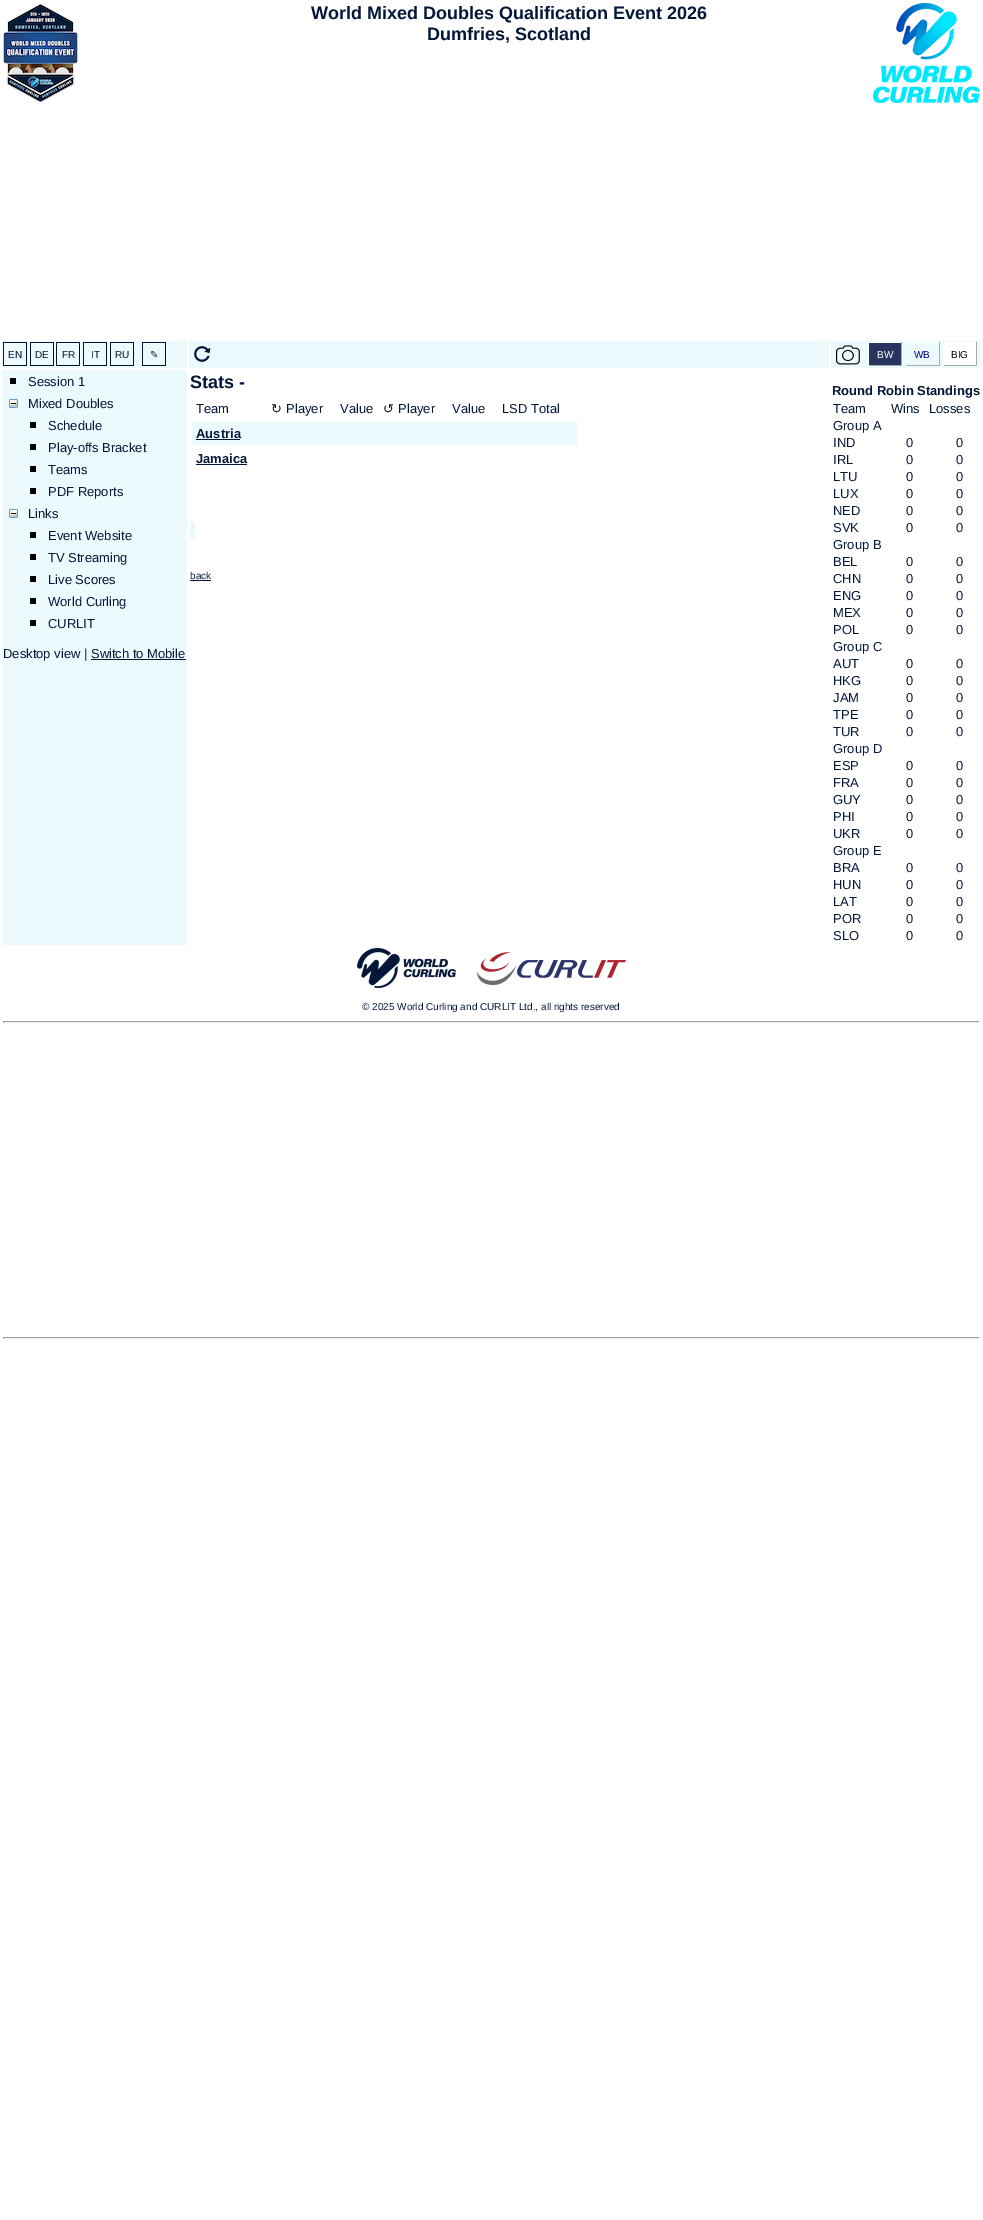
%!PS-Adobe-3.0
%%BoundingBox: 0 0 983 2220
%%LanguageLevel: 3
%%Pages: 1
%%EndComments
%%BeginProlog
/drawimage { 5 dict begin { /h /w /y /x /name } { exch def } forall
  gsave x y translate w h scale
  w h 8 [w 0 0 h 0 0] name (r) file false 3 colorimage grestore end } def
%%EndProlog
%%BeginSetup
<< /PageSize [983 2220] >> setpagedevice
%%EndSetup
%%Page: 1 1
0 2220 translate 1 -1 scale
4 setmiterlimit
1 setgray
0 0 983 2220 rectfill
(images/1.raw) 3 4 75 99 drawimage
(images/2.raw) 873 3 107 100 drawimage
0.925 0.98 0.996 setrgbcolor
2 341 185 27 rectfill
0.02 0.09 0.224 setrgbcolor
3 342 24 1 rectfill
0.012 0.059 0.149 setrgbcolor
26 342 1 24 rectfill
3 365 24 1 rectfill
0.02 0.09 0.224 setrgbcolor
3 342 1 24 rectfill
30 342 24 1 rectfill
0.012 0.059 0.149 setrgbcolor
53 342 1 24 rectfill
30 365 24 1 rectfill
0.02 0.09 0.224 setrgbcolor
30 342 1 24 rectfill
56 342 24 1 rectfill
0.012 0.059 0.149 setrgbcolor
79 342 1 24 rectfill
56 365 24 1 rectfill
0.02 0.09 0.224 setrgbcolor
56 342 1 24 rectfill
83 342 24 1 rectfill
0.012 0.059 0.149 setrgbcolor
106 342 1 24 rectfill
83 365 24 1 rectfill
0.02 0.09 0.224 setrgbcolor
83 342 1 24 rectfill
110 342 24 1 rectfill
0.012 0.059 0.149 setrgbcolor
133 342 1 24 rectfill
110 365 24 1 rectfill
0.02 0.09 0.224 setrgbcolor
110 342 1 24 rectfill
142 342 24 1 rectfill
0.012 0.059 0.149 setrgbcolor
165 342 1 24 rectfill
142 365 24 1 rectfill
0.02 0.09 0.224 setrgbcolor
142 342 1 24 rectfill
0.925 0.98 0.996 setrgbcolor
189 341 640 27 rectfill
(images/3.raw) 194 346 17 16 drawimage
831 341 150 27 rectfill
(images/4.raw) 836 345 24 20 drawimage
0.157 0.2 0.376 setrgbcolor
869 343 32 22 rectfill
1 setgray
868 342 34 1 rectfill
0.667 setgray
901 342 1 24 rectfill
868 365 34 1 rectfill
1 setgray
868 342 1 24 rectfill
905 342 35 1 rectfill
0.667 setgray
939 342 1 24 rectfill
905 365 35 1 rectfill
1 setgray
905 342 1 24 rectfill
944 342 32 23 rectfill
0.667 setgray
976 342 1 24 rectfill
943 365 34 1 rectfill
1 setgray
943 342 1 24 rectfill
0.925 0.98 0.996 setrgbcolor
2 370 185 575 rectfill
0 setgray
10 378 6 6 rectfill
(images/5.raw) 9 399 9 9 drawimage
30 422 6 6 rectfill
30 444 6 6 rectfill
30 466 6 6 rectfill
30 488 6 6 rectfill
(images/5.raw) 9 509 9 9 drawimage
30 532 6 6 rectfill
30 554 6 6 rectfill
30 576 6 6 rectfill
30 598 6 6 rectfill
30 620 6 6 rectfill
0.02 0.09 0.224 setrgbcolor
91 659 95 1 rectfill
0.925 0.98 0.996 setrgbcolor
192 422 386 23 rectfill
0.02 0.09 0.224 setrgbcolor
196 439 44 1 rectfill
196 464 51 1 rectfill
0.925 0.98 0.996 setrgbcolor
190 522 5 17 rectfill
0.02 0.09 0.224 setrgbcolor
190 580 21 1 rectfill
(images/6.raw) 357 948 269 40 drawimage
0.624 setgray
3 1021 977 1 rectfill
0.933 setgray
979 1021 1 2 rectfill
3 1022 977 1 rectfill
0.624 setgray
3 1021 1 2 rectfill
3 1337 977 1 rectfill
0.933 setgray
979 1337 1 2 rectfill
3 1338 977 1 rectfill
0.624 setgray
3 1337 1 2 rectfill
/LiberationSans-Bold [18 0 0 -18 0 0] selectfont
0.02 0.09 0.224 setrgbcolor
311 19 moveto (World Mixed Doubles Qualification Event 2026) show
427 40 moveto (Dumfries, Scotland) show
/LiberationSans-Regular [10 0 0 -10 0 0] selectfont
8 358 moveto (EN) show
35 358 moveto (DE) show
62 358 moveto (FR) show
91 358 moveto (IT) show
115 358 moveto (RU) show
/DejaVuSans-Regular [10 0 0 -10 0 0] selectfont
150 358 moveto (✎) show
/LiberationSans-Regular [10 0 0 -10 0 0] selectfont
1 setgray
877 358 moveto (BW) show
0 0 0.502 setrgbcolor
914 358 moveto (WB) show
0 setgray
951 358 moveto (BIG) show
/LiberationSans-Regular [13 0 0 -13 0 0] selectfont
0.02 0.09 0.224 setrgbcolor
28 386 moveto (Session 1) show
28 408 moveto (Mixed Doubles) show
48 430 moveto (Schedule) show
48 452 moveto (Play-offs Bracket) show
48 474 moveto (Teams) show
48 496 moveto (PDF Reports) show
28 518 moveto (Links) show
48 540 moveto (Event Website) show
48 562 moveto (TV Streaming) show
48 584 moveto (Live Scores) show
48 606 moveto (World Curling) show
48 628 moveto (CURLIT) show
3 658 moveto (Desktop view | Switch to Mobile) show
/LiberationSans-Bold [18 0 0 -18 0 0] selectfont
190 388 moveto (Stats -) show
/LiberationSans-Regular [13 0 0 -13 0 0] selectfont
196 413 moveto (Team) show
/DejaVuSans-Regular [13 0 0 -13 0 0] selectfont
271 413 moveto (↻) show
/LiberationSans-Regular [13 0 0 -13 0 0] selectfont
286 413 moveto (Player) show
340 413 moveto (Value) show
/DejaVuSans-Regular [13 0 0 -13 0 0] selectfont
383 413 moveto (↺) show
/LiberationSans-Regular [13 0 0 -13 0 0] selectfont
398 413 moveto (Player) show
452 413 moveto (Value) show
502 413 moveto (LSD Total) show
/LiberationSans-Bold [13 0 0 -13 0 0] selectfont
196 438 moveto (Austria) show
196 463 moveto (Jamaica) show
/LiberationSans-Regular [10 0 0 -10 0 0] selectfont
190 579 moveto (back) show
/LiberationSans-Bold [13 0 0 -13 0 0] selectfont
832 395 moveto (Round Robin Standings) show
/LiberationSans-Regular [13 0 0 -13 0 0] selectfont
833 413 moveto (Team) show
891 413 moveto (Wins) show
929 413 moveto (Losses) show
833 430 moveto (Group A) show
833 447 moveto (IND) show
906 447 moveto (0) show
956 447 moveto (0) show
833 464 moveto (IRL) show
906 464 moveto (0) show
956 464 moveto (0) show
833 481 moveto (LTU) show
906 481 moveto (0) show
956 481 moveto (0) show
833 498 moveto (LUX) show
906 498 moveto (0) show
956 498 moveto (0) show
833 515 moveto (NED) show
906 515 moveto (0) show
956 515 moveto (0) show
833 532 moveto (SVK) show
906 532 moveto (0) show
956 532 moveto (0) show
833 549 moveto (Group B) show
833 566 moveto (BEL) show
906 566 moveto (0) show
956 566 moveto (0) show
833 583 moveto (CHN) show
906 583 moveto (0) show
956 583 moveto (0) show
833 600 moveto (ENG) show
906 600 moveto (0) show
956 600 moveto (0) show
833 617 moveto (MEX) show
906 617 moveto (0) show
956 617 moveto (0) show
833 634 moveto (POL) show
906 634 moveto (0) show
956 634 moveto (0) show
833 651 moveto (Group C) show
833 668 moveto (AUT) show
906 668 moveto (0) show
956 668 moveto (0) show
833 685 moveto (HKG) show
906 685 moveto (0) show
956 685 moveto (0) show
833 702 moveto (JAM) show
906 702 moveto (0) show
956 702 moveto (0) show
833 719 moveto (TPE) show
906 719 moveto (0) show
956 719 moveto (0) show
833 736 moveto (TUR) show
906 736 moveto (0) show
956 736 moveto (0) show
833 753 moveto (Group D) show
833 770 moveto (ESP) show
906 770 moveto (0) show
956 770 moveto (0) show
833 787 moveto (FRA) show
906 787 moveto (0) show
956 787 moveto (0) show
833 804 moveto (GUY) show
906 804 moveto (0) show
956 804 moveto (0) show
833 821 moveto (PHI) show
906 821 moveto (0) show
956 821 moveto (0) show
833 838 moveto (UKR) show
906 838 moveto (0) show
956 838 moveto (0) show
833 855 moveto (Group E) show
833 872 moveto (BRA) show
906 872 moveto (0) show
956 872 moveto (0) show
833 889 moveto (HUN) show
906 889 moveto (0) show
956 889 moveto (0) show
833 906 moveto (LAT) show
906 906 moveto (0) show
956 906 moveto (0) show
833 923 moveto (POR) show
906 923 moveto (0) show
956 923 moveto (0) show
833 940 moveto (SLO) show
906 940 moveto (0) show
956 940 moveto (0) show
/LiberationSans-Regular [10 0 0 -10 0 0] selectfont
362 1010 moveto (© 2025 World Curling and CURLIT Ltd., all rights reserved) show
showpage
%%EOF
